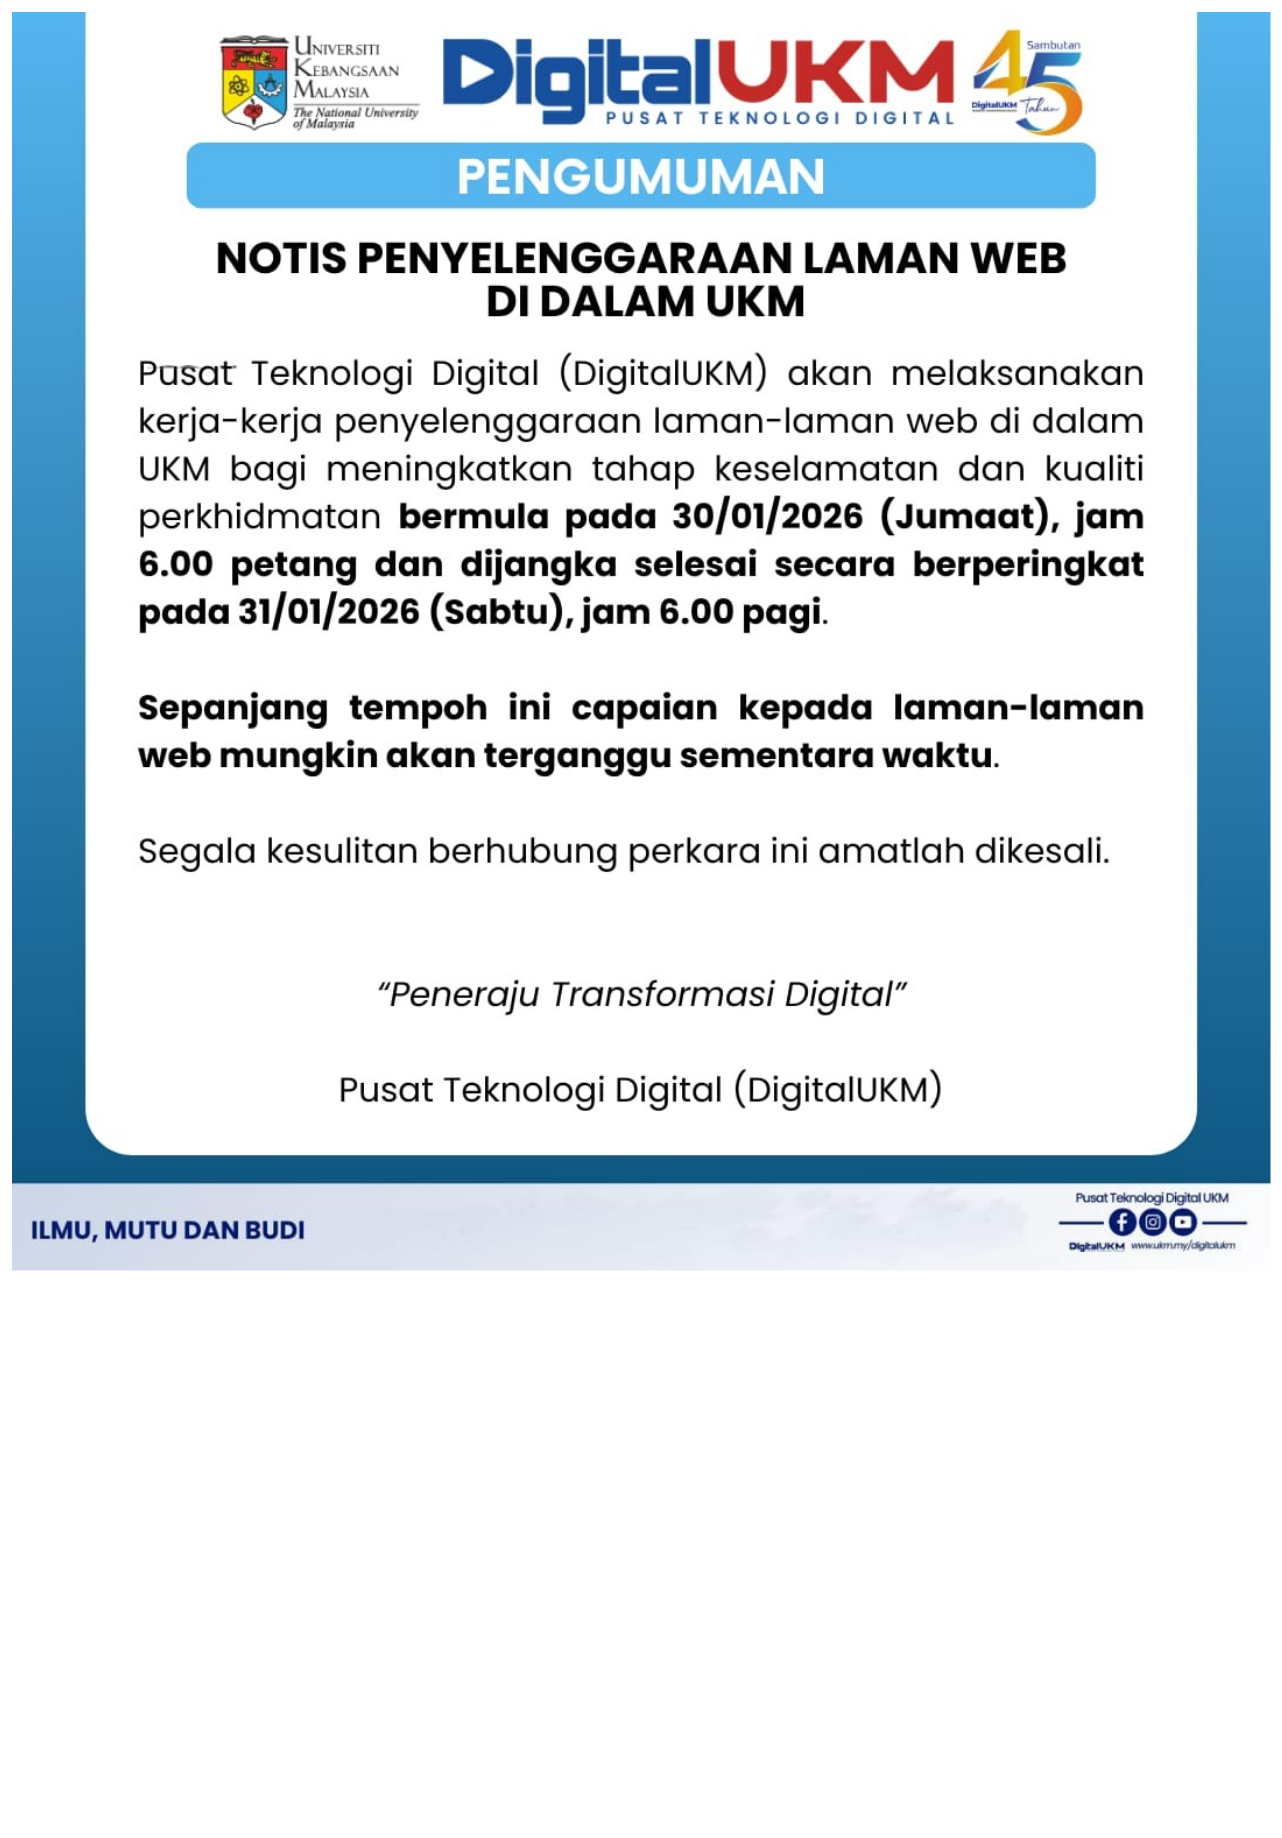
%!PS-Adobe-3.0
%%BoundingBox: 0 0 1282 1838
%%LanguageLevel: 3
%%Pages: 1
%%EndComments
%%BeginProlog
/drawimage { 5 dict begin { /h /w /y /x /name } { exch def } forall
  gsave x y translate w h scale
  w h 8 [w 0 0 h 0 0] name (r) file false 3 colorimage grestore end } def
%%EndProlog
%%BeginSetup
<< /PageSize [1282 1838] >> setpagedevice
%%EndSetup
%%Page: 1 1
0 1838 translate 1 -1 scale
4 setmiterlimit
1 setgray
0 0 1282 1838 rectfill
(images/1.raw) 12 12 1259 1259 drawimage
showpage
%%EOF
